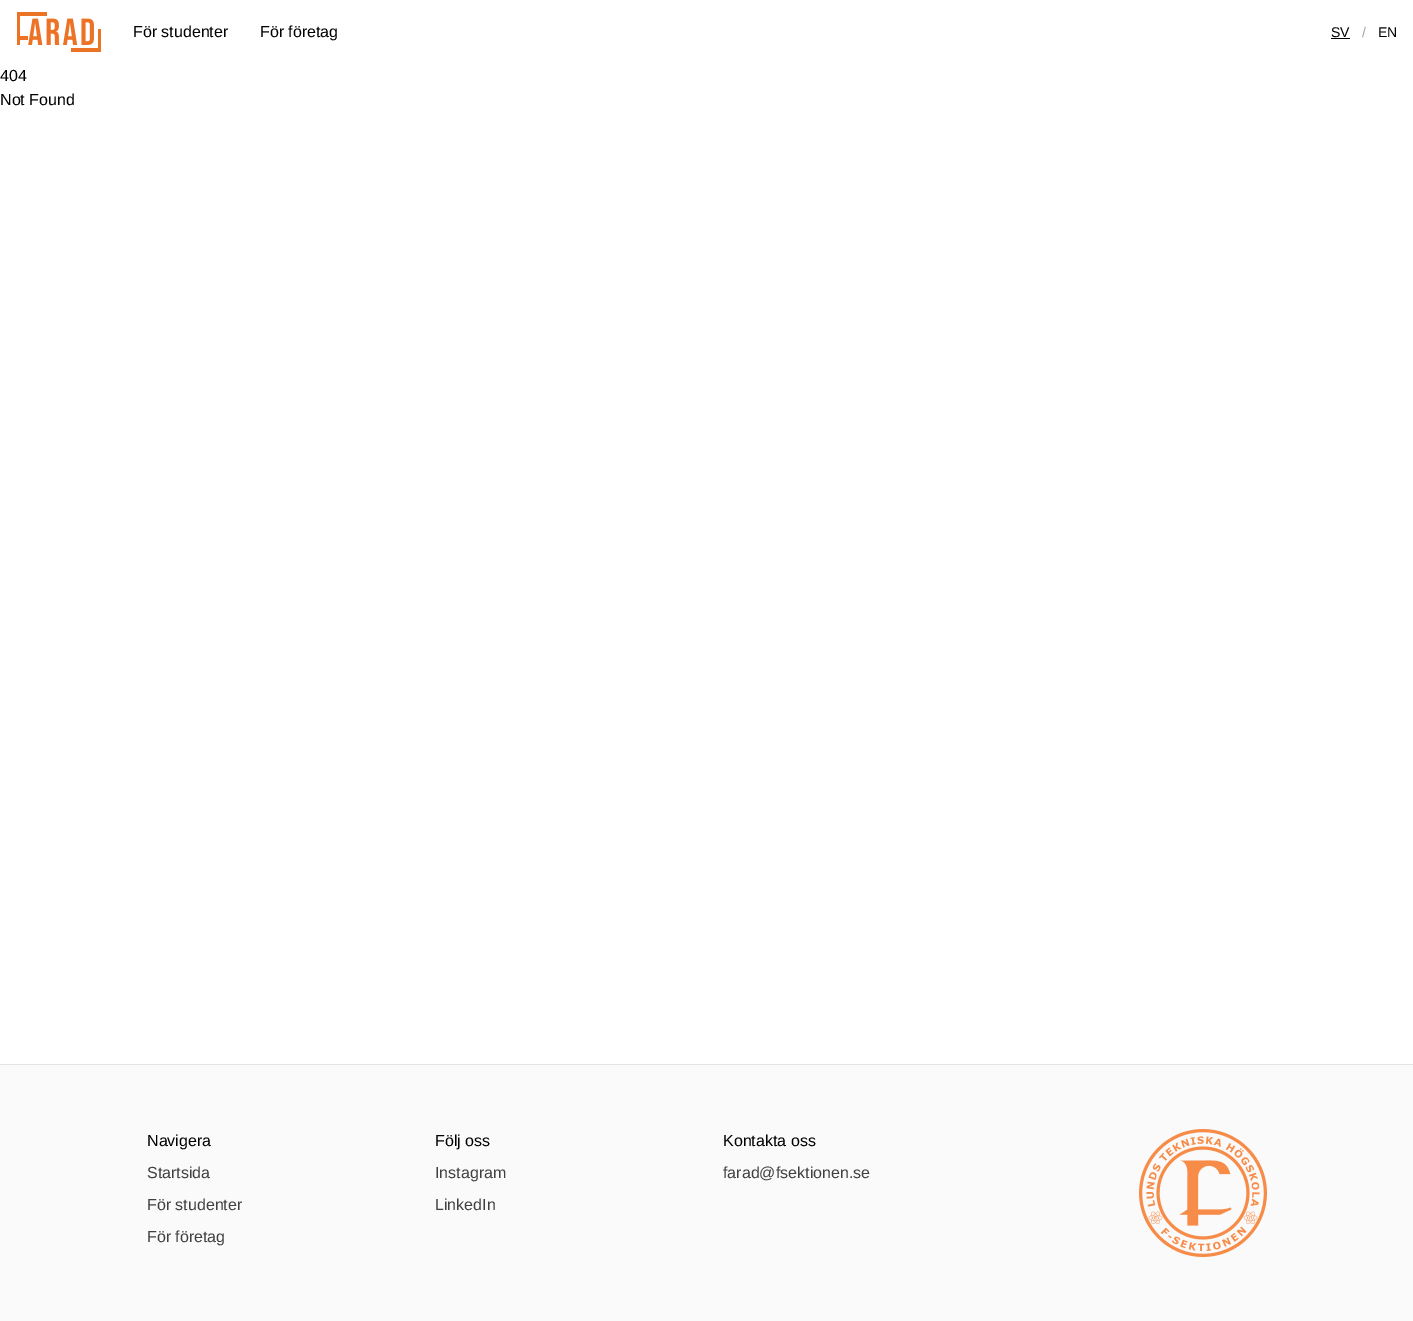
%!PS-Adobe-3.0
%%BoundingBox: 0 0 1413 1321
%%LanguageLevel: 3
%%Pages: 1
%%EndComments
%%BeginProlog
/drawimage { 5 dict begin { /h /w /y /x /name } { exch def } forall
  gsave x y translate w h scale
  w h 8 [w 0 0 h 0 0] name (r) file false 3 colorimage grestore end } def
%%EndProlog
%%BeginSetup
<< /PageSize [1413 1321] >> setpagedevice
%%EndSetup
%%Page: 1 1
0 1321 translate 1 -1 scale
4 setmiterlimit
1 setgray
0 0 1413 1321 rectfill
(images/1.raw) 17 12 84 40 drawimage
0 setgray
1331 38 19 1 rectfill
0.98 setgray
0 1065 1413 256 rectfill
0.898 setgray
0 1064 1413 1 rectfill
(images/2.raw) 1139 1129 128 128 drawimage
/LiberationSans-Regular [16 0 0 -16 0 0] selectfont
0 setgray
133 37 moveto (För studenter) show
260 37 moveto (För företag) show
/LiberationSans-Regular [14 0 0 -14 0 0] selectfont
1331 37 moveto (SV) show
0.631 setgray
1362 37 moveto (/) show
0 setgray
1378 37 moveto (EN) show
/LiberationSans-Regular [16 0 0 -16 0 0] selectfont
0 81 moveto (404) show
0 105 moveto (Not Found) show
147 1146 moveto (Navigera) show
0.251 setgray
147 1178 moveto (Startsida) show
147 1210 moveto (För studenter) show
147 1242 moveto (För företag) show
0 setgray
435 1146 moveto (Följ oss) show
0.251 setgray
435 1178 moveto (Instagram) show
435 1210 moveto (LinkedIn) show
0 setgray
723 1146 moveto (Kontakta oss) show
0.251 setgray
723 1178 moveto (farad@fsektionen.se) show
showpage
%%EOF
